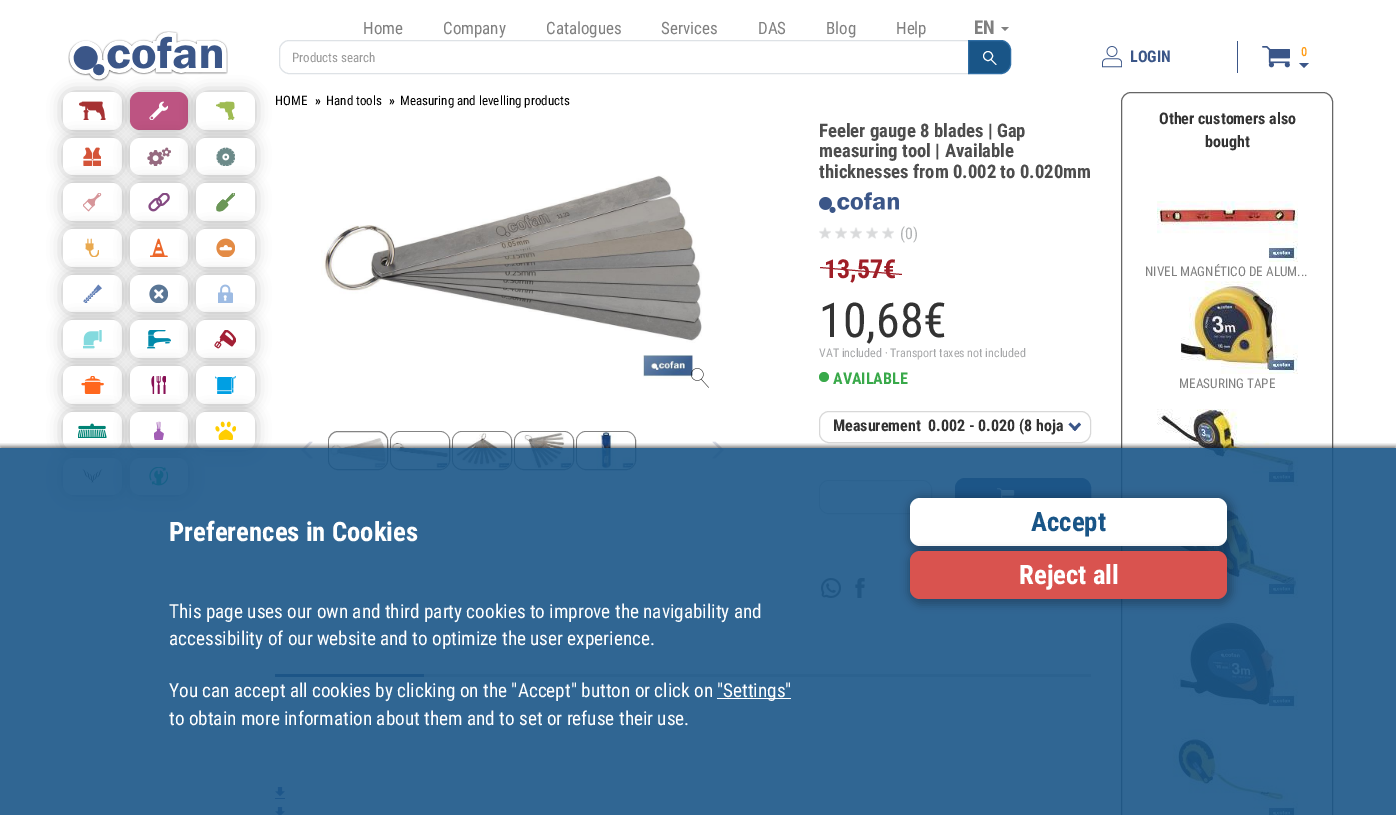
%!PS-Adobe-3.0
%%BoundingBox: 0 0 1396 815
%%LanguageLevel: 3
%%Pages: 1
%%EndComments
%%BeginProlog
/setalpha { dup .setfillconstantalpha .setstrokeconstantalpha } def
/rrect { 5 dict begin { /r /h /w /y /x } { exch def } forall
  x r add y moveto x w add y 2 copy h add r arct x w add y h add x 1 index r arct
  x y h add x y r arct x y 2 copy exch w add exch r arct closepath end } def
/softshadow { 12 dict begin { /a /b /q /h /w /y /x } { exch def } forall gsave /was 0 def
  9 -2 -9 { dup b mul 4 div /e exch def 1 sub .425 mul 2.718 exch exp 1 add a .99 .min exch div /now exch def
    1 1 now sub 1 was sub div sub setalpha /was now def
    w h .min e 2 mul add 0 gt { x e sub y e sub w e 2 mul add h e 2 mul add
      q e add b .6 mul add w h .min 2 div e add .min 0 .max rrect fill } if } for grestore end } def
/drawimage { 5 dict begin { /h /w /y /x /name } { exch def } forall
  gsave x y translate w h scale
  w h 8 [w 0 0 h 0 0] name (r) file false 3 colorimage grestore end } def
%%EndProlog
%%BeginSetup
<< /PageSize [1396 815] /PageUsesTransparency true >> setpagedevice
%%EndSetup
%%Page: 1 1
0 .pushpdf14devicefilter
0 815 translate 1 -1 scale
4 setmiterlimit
1 setgray
0 0 1396 815 rectfill
(images/1.raw) 68 31 160 51 drawimage
0.502 setgray
newpath 1001 27 moveto 1009 27 lineto 1005 31 lineto closepath fill
0.871 0.886 0.902 setrgbcolor
newpath 289 40.5 moveto 968.5 40.5 lineto 968.5 73.5 lineto 289 73.5 lineto 284 73.5 279.5 69 279.5 64 curveto 279.5 50 lineto 279.5 45 284 40.5 289 40.5 curveto closepath stroke
0.098 0.333 0.529 setrgbcolor
newpath 968.5 40.5 moveto 1001 40.5 lineto 1006 40.5 1010.5 45 1010.5 50 curveto 1010.5 64 lineto 1010.5 69 1006 73.5 1001 73.5 curveto 968.5 73.5 lineto closepath gsave fill grestore
0.18 0.427 0.643 setrgbcolor
stroke
1 setgray
newpath 988 56 4.5 0 360 arc closepath stroke
1 setlinecap
newpath 991 59.5 moveto 996 64.5 lineto stroke
(images/2.raw) 1102 46 20 22 drawimage
0.231 0.337 0.533 setrgbcolor
1237 41 1 32 rectfill
(images/3.raw) 1262 46 28 22 drawimage
newpath 1299 63 moveto 1309 63 lineto 1304 68 lineto closepath fill
0 setgray
63 92 59 38 10 7.5 0.25 softshadow
1 setgray
63 92 59 38 10 rrect fill
(images/4.raw) 79 101 27 19 drawimage
0 setgray
130 92 58 38 10 7.5 0.25 softshadow
0.741 0.329 0.51 setrgbcolor
130 92 58 38 10 rrect fill
(images/5.raw) 149 101 19 19 drawimage
0 setgray
196 92 59 38 10 7.5 0.25 softshadow
1 setgray
196 92 59 38 10 rrect fill
(images/6.raw) 216 101 19 19 drawimage
0 setgray
63 138 59 37 10 7.5 0.25 softshadow
1 setgray
63 138 59 37 10 rrect fill
(images/7.raw) 83 147 18 19 drawimage
0 setgray
130 138 58 37 10 7.5 0.25 softshadow
1 setgray
130 138 58 37 10 rrect fill
(images/8.raw) 147 147 24 19 drawimage
0 setgray
196 138 59 37 10 7.5 0.25 softshadow
1 setgray
196 138 59 37 10 rrect fill
(images/9.raw) 216 147 19 19 drawimage
0 setgray
63 183 59 38 10 7.5 0.25 softshadow
1 setgray
63 183 59 38 10 rrect fill
(images/10.raw) 83 193 19 19 drawimage
0 setgray
130 183 58 38 10 7.5 0.25 softshadow
1 setgray
130 183 58 38 10 rrect fill
(images/11.raw) 148 193 22 19 drawimage
0 setgray
196 183 59 38 10 7.5 0.25 softshadow
1 setgray
196 183 59 38 10 rrect fill
(images/12.raw) 216 193 19 19 drawimage
0 setgray
63 229 59 38 10 7.5 0.25 softshadow
1 setgray
63 229 59 38 10 rrect fill
(images/13.raw) 85 238 14 19 drawimage
0 setgray
130 229 58 38 10 7.5 0.25 softshadow
1 setgray
130 229 58 38 10 rrect fill
(images/14.raw) 150 238 18 19 drawimage
0 setgray
196 229 59 38 10 7.5 0.25 softshadow
1 setgray
196 229 59 38 10 rrect fill
(images/15.raw) 216 238 19 19 drawimage
0 setgray
63 275 59 37 10 7.5 0.25 softshadow
1 setgray
63 275 59 37 10 rrect fill
(images/16.raw) 83 284 19 19 drawimage
0 setgray
130 275 58 37 10 7.5 0.25 softshadow
1 setgray
130 275 58 37 10 rrect fill
(images/17.raw) 149 284 19 19 drawimage
0 setgray
196 275 59 37 10 7.5 0.25 softshadow
1 setgray
196 275 59 37 10 rrect fill
(images/18.raw) 218 284 15 19 drawimage
0 setgray
63 320 59 38 10 7.5 0.25 softshadow
1 setgray
63 320 59 38 10 rrect fill
(images/19.raw) 83 330 19 19 drawimage
0 setgray
130 320 58 38 10 7.5 0.25 softshadow
1 setgray
130 320 58 38 10 rrect fill
(images/20.raw) 147 330 24 19 drawimage
0 setgray
196 320 59 38 10 7.5 0.25 softshadow
1 setgray
196 320 59 38 10 rrect fill
(images/21.raw) 214 330 22 19 drawimage
0 setgray
63 366 59 38 10 7.5 0.25 softshadow
1 setgray
63 366 59 38 10 rrect fill
(images/22.raw) 81 376 23 18 drawimage
0 setgray
130 366 58 38 10 7.5 0.25 softshadow
1 setgray
130 366 58 38 10 rrect fill
(images/23.raw) 151 376 15 18 drawimage
0 setgray
196 366 59 38 10 7.5 0.25 softshadow
1 setgray
196 366 59 38 10 rrect fill
(images/24.raw) 215 376 21 18 drawimage
0 setgray
63 412 59 38 10 7.5 0.25 softshadow
1 setgray
63 412 59 38 10 rrect fill
(images/25.raw) 78 423 29 15 drawimage
0 setgray
130 412 58 38 10 7.5 0.25 softshadow
1 setgray
130 412 58 38 10 rrect fill
(images/26.raw) 154 421 10 19 drawimage
0 setgray
196 412 59 38 10 7.5 0.25 softshadow
1 setgray
196 412 59 38 10 rrect fill
(images/27.raw) 215 421 21 19 drawimage
0 setgray
63 458 59 37 10 7.5 0.25 softshadow
1 setgray
63 458 59 37 10 rrect fill
(images/28.raw) 82 469 21 14 drawimage
0 setgray
130 458 58 37 10 7.5 0.25 softshadow
1 setgray
130 458 58 37 10 rrect fill
(images/29.raw) 149 467 19 19 drawimage
(images/30.raw) 321 175 381 204 drawimage
(images/31.raw) 691 368 18 20 drawimage
(images/32.raw) 301 441 12 18 drawimage
0.518 setgray
0 setlinecap
328.5 431.5 59 38 9.5 rrect stroke
(images/33.raw) 329 438 58 31 drawimage
390.5 431.5 59 38 9.5 rrect stroke
(images/34.raw) 391 432 58 37 drawimage
452.5 431.5 59 38 9.5 rrect stroke
(images/35.raw) 453 432 58 37 drawimage
514.5 431.5 59 38 9.5 rrect stroke
(images/36.raw) 515 432 58 37 drawimage
576.5 431.5 59 38 9.5 rrect stroke
(images/37.raw) 577 432 58 37 drawimage
(images/38.raw) 712 441 12 18 drawimage
(images/39.raw) 819 192 80 21 drawimage
(images/40.raw) 819 227 12 12 drawimage
(images/40.raw) 835 227 12 12 drawimage
(images/40.raw) 850 227 12 12 drawimage
(images/40.raw) 866 227 12 12 drawimage
(images/40.raw) 882 227 12 12 drawimage
0.624 0.118 0.153 setrgbcolor
newpath 820 267 moveto 902 274 lineto 902 275 lineto 820 268 lineto closepath fill
0.224 0.663 0.29 setrgbcolor
newpath 824 377 5 0 360 arc closepath fill
0.847 setgray
819.5 411.5 271 31 9.5 rrect stroke
0.231 0.337 0.533 setrgbcolor
newpath 1079 422.5 moveto 1081 424.5 lineto 1075 431 lineto 1072.5 429 lineto closepath fill
newpath 1070.5 422.5 moveto 1077 429 lineto 1075 431 lineto 1068.5 424.5 lineto closepath fill
0.847 setgray
819.5 480.5 112 33 9.5 rrect stroke
1 setgray
newpath 829 481 moveto 848 481 lineto 850 481 852 483 852 485 curveto 852 509 lineto 852 511 850 513 848 513 curveto 829 513 lineto 824 513 820 509 820 504 curveto 820 490 lineto 820 485 824 481 829 481 curveto closepath fill
newpath 903 481 moveto 922 481 lineto 927 481 931 485 931 490 curveto 931 504 lineto 931 509 927 513 922 513 curveto 903 513 lineto 901 513 899 511 899 509 curveto 899 485 lineto 899 483 901 481 903 481 curveto closepath fill
0.231 0.337 0.533 setrgbcolor
955.5 478.5 135 31 9.5 rrect gsave fill grestore
stroke
(images/41.raw) 997 488 18 10 drawimage
(images/42.raw) 821 578 20 20 drawimage
(images/43.raw) 855 578 10 20 drawimage
0.839 setgray
424 674 667 3 rectfill
0.231 0.337 0.533 setrgbcolor
275 674 149 3 rectfill
(images/44.raw) 275 787 10 12 drawimage
(images/45.raw) 275 807 10 8 drawimage
0.4 setgray
1121.5 92.5 211 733 9.5 rrect stroke
(images/46.raw) 1157 201 141 61 drawimage
(images/47.raw) 1181 281 117 93 drawimage
(images/48.raw) 1157 409 141 77 drawimage
(images/49.raw) 1157 505 141 93 drawimage
(images/50.raw) 1173 617 125 93 drawimage
(images/51.raw) 1172 729 126 86 drawimage
gsave
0 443 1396 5 rectclip
0 setgray
0 446 1396 367 0 2 0.5 softshadow
grestore
0.9 setalpha
0.098 0.333 0.529 setrgbcolor
0 448 1396 367 rectfill
1 setalpha
1 setgray
717 698 74 1 rectfill
0 setgray
908 496 325 56 14 4 0.24 softshadow
1 setgray
910 498 317 48 10 rrect fill
0 setgray
908 549 325 56 14 4 0.24 softshadow
0.851 0.325 0.31 setrgbcolor
910 551 317 48 10 rrect fill
/RobotoCondensed-Regular [17 0 0 -17 0 0] selectfont
0.502 setgray
363 34 moveto (Home) show
443 34 moveto (Company) show
546 34 moveto (Catalogues) show
661 34 moveto (Services) show
758 34 moveto (DAS) show
826 34 moveto (Blog) show
896 34 moveto (Help) show
/RobotoCondensed-Bold [19 0 0 -19 0 0] selectfont
974 34 moveto (EN) show
/RobotoCondensed-Regular [13 0 0 -13 0 0] selectfont
0.6 setgray
292 62 moveto (Products search) show
/RobotoCondensed-Bold [16 0 0 -16 0 0] selectfont
0.231 0.337 0.533 setrgbcolor
1130 62 moveto (LOGIN) show
/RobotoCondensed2-Bold [12 0 0 -12 0 0] selectfont
1 0.612 0.086 setrgbcolor
1301 56 moveto (0) show
/RobotoCondensed-Regular [13 0 0 -13 0 0] selectfont
0 setgray
275 105 moveto (HOME) show
/RobotoCondensed-Bold [13 0 0 -13 0 0] selectfont
315 105 moveto (») show
/RobotoCondensed-Regular [13 0 0 -13 0 0] selectfont
326 105 moveto (Hand tools) show
/RobotoCondensed-Bold [13 0 0 -13 0 0] selectfont
389 105 moveto (») show
/RobotoCondensed-Regular [13 0 0 -13 0 0] selectfont
400 105 moveto (Measuring and levelling products) show
/RobotoCondensed-Bold [18.7 0 0 -18.7 0 0] selectfont
0.302 setgray
819 137 moveto (Feeler gauge 8 blades | Gap) show
819 157 moveto (measuring tool | Available) show
819 178 moveto (thicknesses from 0.002 to 0.020mm) show
/RobotoCondensed-Regular [16 0 0 -16 0 0] selectfont
0.694 0.702 0.706 setrgbcolor
900 239 moveto (\(0\)) show
/RobotoCondensed-Bold [26 0 0 -26 0 0] selectfont
0.624 0.118 0.153 setrgbcolor
824 278 moveto (13,57€) show
/RobotoCondensed-Regular [48 0 0 -48 0 0] selectfont
0.2 setgray
819 337 moveto (10,68€) show
/RobotoCondensed-Regular [12 0 0 -12 0 0] selectfont
0.647 0.651 0.659 setrgbcolor
819 357 moveto (VAT included · Transport taxes not included) show
/RobotoCondensed-Bold [16 0 0 -16 0 0] selectfont
0.224 0.663 0.29 setrgbcolor
833 384 moveto (AVAILABLE) show
0.2 setgray
833 431 moveto (Measurement) show
928 431 moveto (0.002 - 0.020 \(8 hoja) show
1159 124 moveto (Other customers also) show
1205 147 moveto (bought) show
/RobotoCondensed-Regular [13.25 0 0 -13.25 0 0] selectfont
0.502 setgray
1145 276 moveto (NIVEL MAGNÉTICO DE ALUM...) show
1179 388 moveto (MEASURING TAPE) show
/RobotoCondensed-Bold [26.75 0 0 -26.75 0 0] selectfont
1 setgray
169 541 moveto (Preferences in Cookies) show
/RobotoCondensed-Regular [19.2 0 0 -19.2 0 0] selectfont
169 618 moveto (This page uses our own and third party cookies to improve the navigability and) show
169 645 moveto (accessibility of our website and to optimize the user experience.) show
169 697 moveto (You can accept all cookies by clicking on the "Accept" button or click on) show
717 697 moveto ("Settings") show
169 725 moveto (to obtain more information about them and to set or refuse their use.) show
/RobotoCondensed-Bold [26.75 0 0 -26.75 0 0] selectfont
0.098 0.333 0.529 setrgbcolor
1031 531 moveto (Accept) show
1 setgray
1019 584 moveto (Reject all) show
.poppdf14devicefilter showpage
%%EOF
